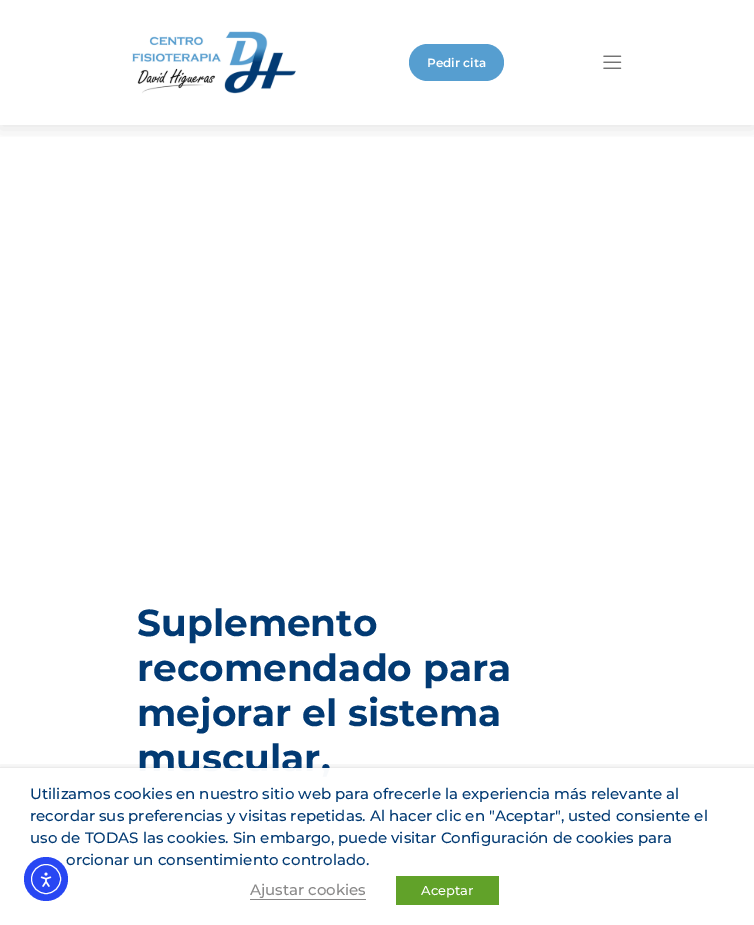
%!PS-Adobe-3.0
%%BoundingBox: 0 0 754 925
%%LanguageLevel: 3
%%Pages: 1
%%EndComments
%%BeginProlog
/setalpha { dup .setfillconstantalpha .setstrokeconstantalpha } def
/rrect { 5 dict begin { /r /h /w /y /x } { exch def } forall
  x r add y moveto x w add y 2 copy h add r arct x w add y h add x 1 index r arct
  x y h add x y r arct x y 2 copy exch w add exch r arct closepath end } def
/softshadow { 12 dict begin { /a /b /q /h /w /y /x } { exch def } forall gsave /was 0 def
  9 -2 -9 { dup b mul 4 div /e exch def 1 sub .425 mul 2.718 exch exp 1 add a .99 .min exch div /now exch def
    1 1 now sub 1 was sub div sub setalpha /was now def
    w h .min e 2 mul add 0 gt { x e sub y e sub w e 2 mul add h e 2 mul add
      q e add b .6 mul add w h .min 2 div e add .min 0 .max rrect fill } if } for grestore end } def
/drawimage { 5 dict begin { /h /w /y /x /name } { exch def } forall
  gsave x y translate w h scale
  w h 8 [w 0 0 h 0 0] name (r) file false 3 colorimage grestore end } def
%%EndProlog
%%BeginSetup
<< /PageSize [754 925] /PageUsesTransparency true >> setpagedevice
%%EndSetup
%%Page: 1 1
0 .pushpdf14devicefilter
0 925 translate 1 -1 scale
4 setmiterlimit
1 setgray
0 0 754 925 rectfill
gsave
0 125 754 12 rectclip
0 setgray
0 4 754 125 0 9 0.1 softshadow
grestore
(images/1.raw) 132 31 164 63 drawimage
0.337 0.62 0.816 setrgbcolor
409 44 95 37 18.5 rrect fill
(images/2.raw) 603 55 19 14 drawimage
gsave
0 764 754 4 rectclip
0 setgray
0 773 754 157 0 5 0.5 softshadow
grestore
0.537 0.533 0.533 setrgbcolor
250 899 116 1 rectfill
0.38 0.635 0.161 setrgbcolor
396 876 103 29 rectfill
/Montserrat-SemiBold [12 0 0 -12 0 0] selectfont
1 setgray
427 67 moveto (Pedir cita) show
/Montserrat-Bold [37.5 0 0 -37.5 0 0] selectfont
0.008 0.227 0.451 setrgbcolor
137 636 moveto (Suplemento) show
137 681 moveto (recomendado para) show
137 726 moveto (mejorar el sistema) show
137 771 moveto (muscular,) show
0.97 setalpha
1 setgray
139 768 191 9 rectfill
/Montserrat-Medium [15 0 0 -15 0 0] selectfont
1 setalpha
0.008 0.227 0.451 setrgbcolor
30 799 moveto (Utilizamos cookies en nuestro sitio web para ofrecerle la experiencia más relevante al) show
30 821 moveto (recordar sus preferencias y visitas repetidas. Al hacer clic en "Aceptar", usted consiente el) show
30 843 moveto (uso de TODAS las cookies. Sin embargo, puede visitar Configuración de cookies para) show
66 865 moveto (orcionar un consentimiento controlado.) show
0.537 0.533 0.533 setrgbcolor
250 895 moveto (Ajustar cookies) show
/Montserrat-Medium [13 0 0 -13 0 0] selectfont
1 setgray
421 895 moveto (Aceptar) show
0.157 0.278 0.953 setrgbcolor
newpath 46 879 22 0 360 arc closepath fill
1 setgray
newpath 46 879 14.5 0 360 arc closepath stroke
(images/3.raw) 40 872 12 15 drawimage
.poppdf14devicefilter showpage
%%EOF
